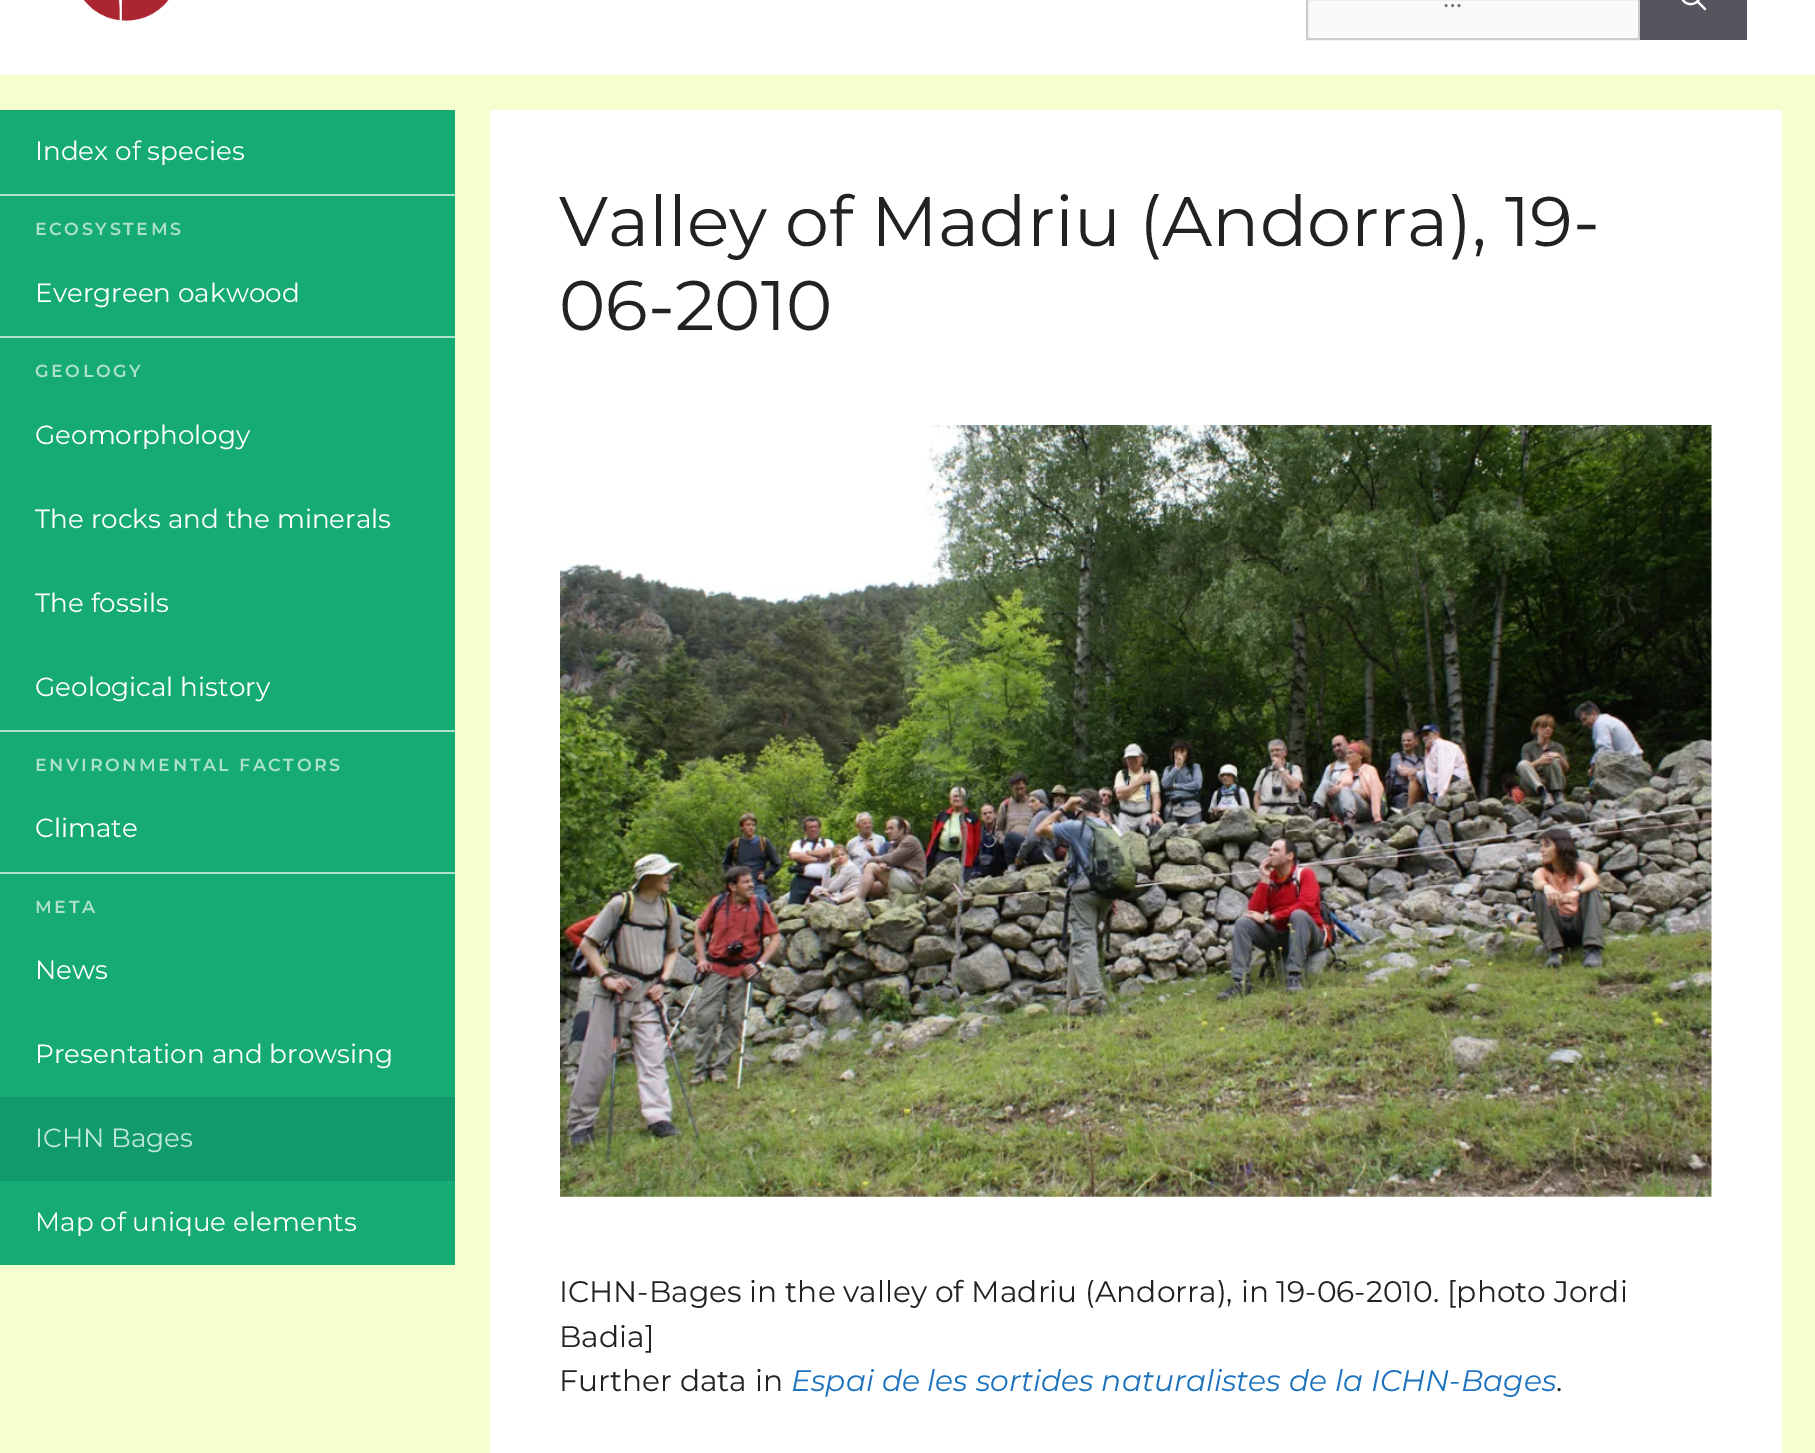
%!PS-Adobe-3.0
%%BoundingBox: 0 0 1815 1453
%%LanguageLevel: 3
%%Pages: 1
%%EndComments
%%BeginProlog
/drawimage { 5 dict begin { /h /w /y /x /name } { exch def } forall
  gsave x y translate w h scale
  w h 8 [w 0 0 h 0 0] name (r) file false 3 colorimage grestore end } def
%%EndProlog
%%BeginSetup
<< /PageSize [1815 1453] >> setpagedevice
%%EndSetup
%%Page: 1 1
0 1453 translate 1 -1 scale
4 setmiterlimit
0.957 0.996 0.812 setrgbcolor
0 0 1815 1453 rectfill
1 setgray
0 0 1815 75 rectfill
(images/1.raw) 83 0 86 21 drawimage
0.98 setgray
newpath 1307 -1 moveto 1639 -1 lineto 1639 39 lineto 1307 39 lineto closepath gsave fill grestore
0.8 setgray
2 setlinewidth
stroke
0.333 0.333 0.369 setrgbcolor
1640 0 107 40 rectfill
(images/2.raw) 1681 0 26 11 drawimage
0.086 0.667 0.455 setrgbcolor
0 110 455 1155 rectfill
0.678 0.882 0.808 setrgbcolor
0 194 455 2 rectfill
0 336 455 2 rectfill
0 730 455 2 rectfill
0 872 455 2 rectfill
0.067 0.608 0.427 setrgbcolor
0 1097 455 84 rectfill
1 setgray
490 110 1292 1343 rectfill
(images/3.raw) 560 425 1152 772 drawimage
/Montserrat-Regular [29.75 0 0 -29.75 0 0] selectfont
0.459 setgray
1443 7 moveto (…) show
/Montserrat-Regular [26.25 0 0 -26.25 0 0] selectfont
1 setgray
35 160 moveto (Index of species) show
/Montserrat-SemiBold [17.5 0 0 -17.5 0 0] selectfont
0.678 0.882 0.808 setrgbcolor
35 235 moveto 2.6 0 (ECOSYSTEMS) ashow
/Montserrat-Regular [26.25 0 0 -26.25 0 0] selectfont
1 setgray
35 302 moveto (Evergreen oakwood) show
/Montserrat-SemiBold [17.5 0 0 -17.5 0 0] selectfont
0.678 0.882 0.808 setrgbcolor
35 377 moveto 2.6 0 (GEOLOGY) ashow
/Montserrat-Regular [26.25 0 0 -26.25 0 0] selectfont
1 setgray
35 444 moveto (Geomorphology) show
35 528 moveto (The rocks and the minerals) show
35 612 moveto (The fossils) show
35 696 moveto (Geological history) show
/Montserrat-SemiBold [17.5 0 0 -17.5 0 0] selectfont
0.678 0.882 0.808 setrgbcolor
35 771 moveto 2.6 0 (ENVIRONMENTAL FACTORS) ashow
/Montserrat-Regular [26.25 0 0 -26.25 0 0] selectfont
1 setgray
35 837 moveto (Climate) show
/Montserrat-SemiBold [17.5 0 0 -17.5 0 0] selectfont
0.678 0.882 0.808 setrgbcolor
35 913 moveto 2.6 0 (META) ashow
/Montserrat-Regular [26.25 0 0 -26.25 0 0] selectfont
1 setgray
35 979 moveto (News) show
35 1063 moveto (Presentation and browsing) show
0.761 0.91 0.871 setrgbcolor
35 1147 moveto (ICHN Bages) show
1 setgray
35 1231 moveto (Map of unique elements) show
/Montserrat-Regular [70 0 0 -70 0 0] selectfont
0.133 setgray
559 246 moveto (Valley of Madriu \(Andorra\), 19-) show
559 330 moveto (06-2010) show
/Montserrat-Regular [29.75 0 0 -29.75 0 0] selectfont
559 1302 moveto (ICHN-Bages in the valley of Madriu \(Andorra\), in 19-06-2010. [photo Jordi) show
559 1347 moveto (Badia]) show
559 1391 moveto (Further data in) show
/Montserrat-Italic [29.75 0 0 -29.75 0 0] selectfont
0.118 0.451 0.745 setrgbcolor
791 1391 moveto (Espai de les sortides naturalistes de la ICHN-Bages) show
/Montserrat-Regular [29.75 0 0 -29.75 0 0] selectfont
0.133 setgray
1556 1391 moveto (.) show
showpage
%%EOF
